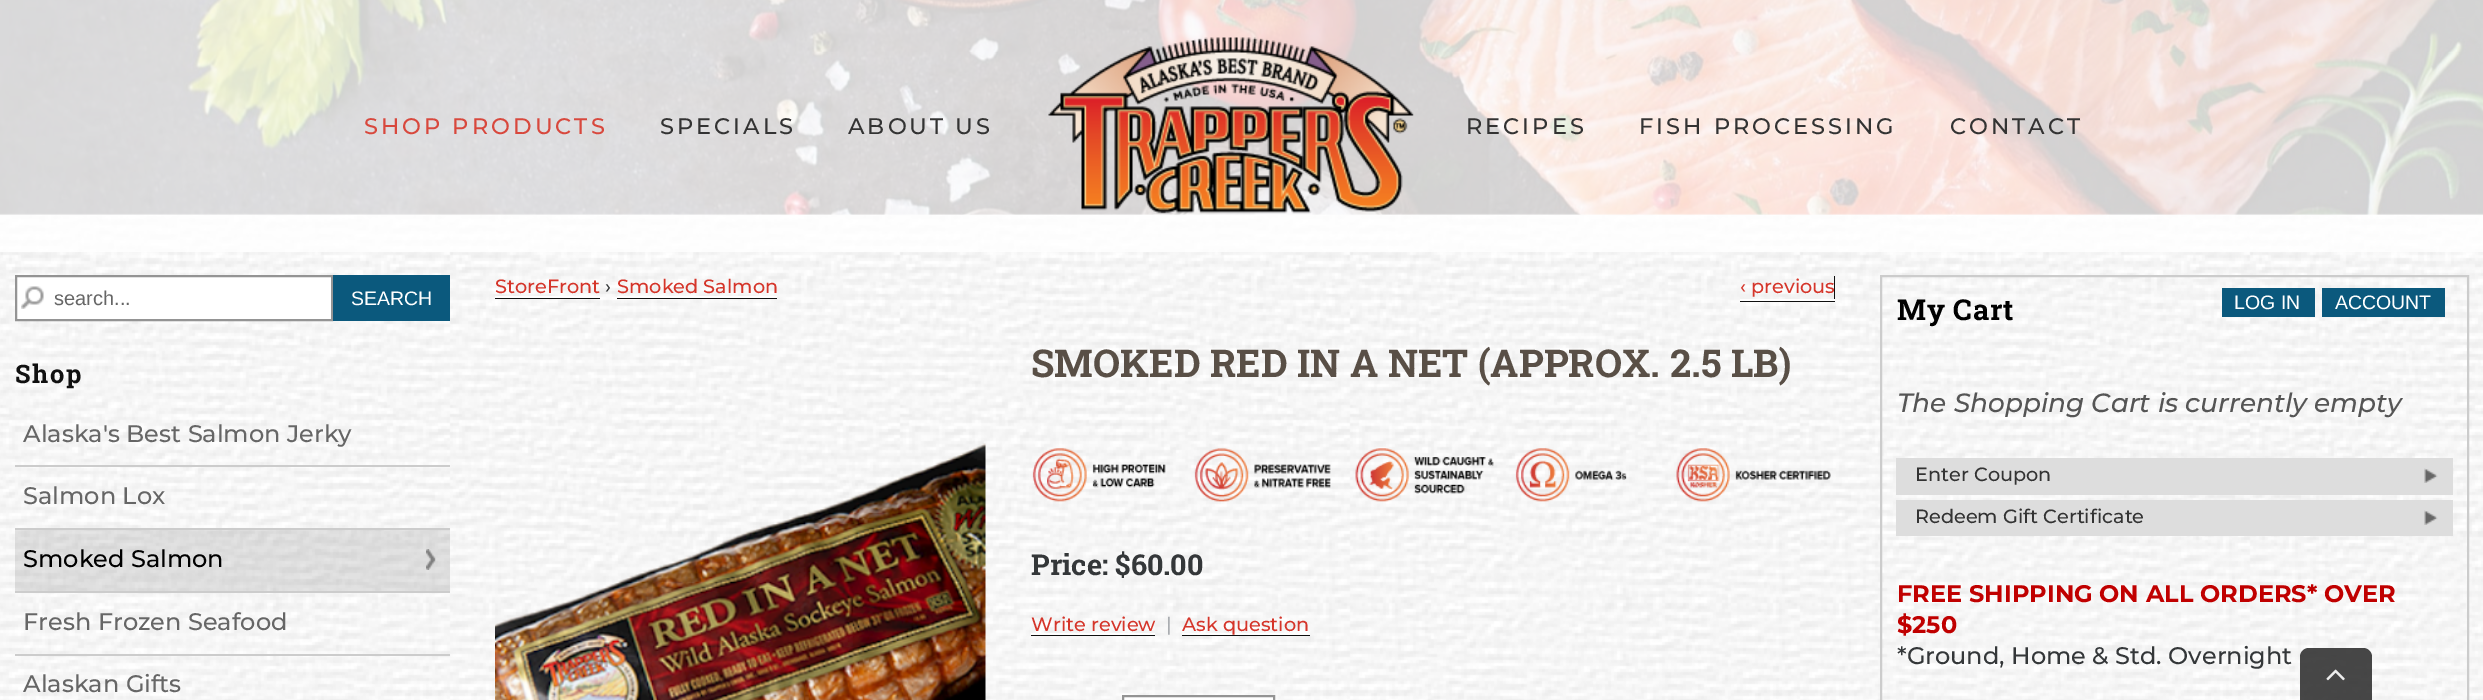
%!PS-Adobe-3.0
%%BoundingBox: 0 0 2483 700
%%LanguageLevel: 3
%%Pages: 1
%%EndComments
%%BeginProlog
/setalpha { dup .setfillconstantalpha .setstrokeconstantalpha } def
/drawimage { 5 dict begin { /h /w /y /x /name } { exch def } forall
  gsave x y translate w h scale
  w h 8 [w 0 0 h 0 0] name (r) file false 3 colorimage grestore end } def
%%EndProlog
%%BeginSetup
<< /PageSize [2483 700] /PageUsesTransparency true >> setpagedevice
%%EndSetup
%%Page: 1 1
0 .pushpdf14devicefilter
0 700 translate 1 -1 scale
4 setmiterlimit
1 setgray
0 0 2483 700 rectfill
(images/1.raw) 0 213 2483 487 drawimage
(images/2.raw) 0 0 2483 215 drawimage
0.82 setalpha
0 0 2483 252 rectfill
1 setalpha
(images/3.raw) 1048 37 366 177 drawimage
17 277 314 42 rectfill
(images/4.raw) 21 286 23 23 drawimage
0.58 setgray
2 setlinewidth
16 276 316 44 rectstroke
0.043 0.349 0.49 setrgbcolor
333 275 117 46 rectfill
0.8 setgray
15 465 435 2 rectfill
15 528 435 2 rectfill
0.1 setalpha
0 setgray
15 530 435 61 rectfill
1 setalpha
(images/5.raw) 426 549 10 21 drawimage
0.8 setgray
15 591 435 2 rectfill
15 654 435 2 rectfill
0.059 setgray
495 298 105 1 rectfill
1 setgray
495 296 105 2 rectfill
0.059 setgray
617 298 160 1 rectfill
1 setgray
617 296 160 2 rectfill
0.059 setgray
newpath 1740 300 moveto 1740 302 lineto 1835 302 lineto 1835 276 lineto 1834 276 lineto 1834 300 lineto closepath fill
1 setgray
1740 299 95 2 rectfill
(images/6.raw) 495 443 491 257 drawimage
(images/7.raw) 1032 448 134 54 drawimage
(images/8.raw) 1194 448 137 54 drawimage
(images/9.raw) 1355 448 139 54 drawimage
(images/10.raw) 1515 448 112 54 drawimage
(images/11.raw) 1676 448 155 54 drawimage
0.059 setgray
1031 635 124 1 rectfill
1 setgray
1031 633 124 2 rectfill
0.059 setgray
newpath 1182 634 moveto 1182 636 lineto 1310 636 lineto 1310 614 lineto 1310 634 lineto closepath fill
1 setgray
1182 633 128 2 rectfill
newpath 1123 696 moveto 1274 696 lineto 1274 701 lineto 1123 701 lineto closepath gsave fill grestore
0.58 setgray
stroke
0.8 setgray
1881 276 587 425 rectstroke
0.043 0.349 0.49 setrgbcolor
2222 288 93 29 rectfill
2322 288 123 29 rectfill
0.867 setgray
1896 458 557 37 rectfill
(images/12.raw) 2424 468 14 15 drawimage
1896 500 557 36 rectfill
(images/12.raw) 2424 510 14 15 drawimage
0.9 setalpha
0.2 setgray
newpath 2309 648 moveto 2363 648 lineto 2368 648 2372 652 2372 657 curveto 2372 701 lineto 2300 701 lineto 2300 657 lineto 2300 652 2304 648 2309 648 curveto closepath fill
1 setalpha
(images/13.raw) 2326 669 19 12 drawimage
/Montserrat-Medium [22.5 0 0 -22.5 0 0] selectfont
0.847 0.282 0.239 setrgbcolor
364 134 moveto 3 0 (SHOP PRODUCTS) ashow
0.2 setgray
660 134 moveto 3 0 (SPECIALS) ashow
848 134 moveto 3 0 (ABOUT US) ashow
1466 134 moveto 3 0 (RECIPES) ashow
1639 134 moveto 3 0 (FISH PROCESSING) ashow
1950 134 moveto 3 0 (CONTACT) ashow
/LiberationSans-Regular [20 0 0 -20 0 0] selectfont
0.4 setgray
54 305 moveto (search...) show
/LiberationSans-Regular [19.5 0 0 -19.5 0 0] selectfont
1 setgray
351 305 moveto (SEARCH) show
/RobotoSlab-Bold [25.5 0 0 -25.5 0 0] selectfont
0.067 setgray
15 383 moveto 1.5 0 (Shop) ashow
/Montserrat-Medium [24 0 0 -24 0 0] selectfont
0.4 setgray
23 442 moveto (Alaska's Best Salmon Jerky) show
23 504 moveto (Salmon Lox) show
0 setgray
23 567 moveto (Smoked Salmon) show
0.4 setgray
23 630 moveto (Fresh Frozen Seafood) show
23 692 moveto (Alaskan Gifts) show
/Montserrat-Medium [19.25 0 0 -19.25 0 0] selectfont
0.835 0.208 0.165 setrgbcolor
495 293 moveto (StoreFront) show
0.204 0.216 0.224 setrgbcolor
605 293 moveto (›) show
0.835 0.208 0.165 setrgbcolor
617 293 moveto (Smoked Salmon) show
1740 293 moveto (‹ previous) show
/RobotoSlab-Bold [38.4 0 0 -38.4 0 0] selectfont
0.349 0.31 0.275 setrgbcolor
1031 377 moveto (SMOKED RED IN A NET \(APPROX. 2.5 LB\)) show
/RobotoSlab-Bold [28.75 0 0 -28.75 0 0] selectfont
0.204 0.216 0.224 setrgbcolor
1031 575 moveto (Price: $60.00) show
/Montserrat-Medium [19.25 0 0 -19.25 0 0] selectfont
0.835 0.208 0.165 setrgbcolor
1031 631 moveto (Write review) show
0.667 0.678 0.694 setrgbcolor
1166 631 moveto (|) show
0.835 0.208 0.165 setrgbcolor
1182 631 moveto (Ask question) show
/RobotoSlab-Bold [28.75 0 0 -28.75 0 0] selectfont
0 setgray
1897 320 moveto 0.75 0 (My Cart) ashow
/LiberationSans-Regular [19.5 0 0 -19.5 0 0] selectfont
1 setgray
2234 309 moveto (LOG IN) show
2335 309 moveto (ACCOUNT) show
/Montserrat-MediumItalic [26.4 0 0 -26.4 0 0] selectfont
0.333 setgray
1897 412 moveto (The Shopping Cart is currently empty) show
/Montserrat-Medium [19.25 0 0 -19.25 0 0] selectfont
0.2 setgray
1915 481 moveto (Enter Coupon) show
1915 523 moveto (Redeem Gift Certificate) show
/Montserrat-Bold [24 0 0 -24 0 0] selectfont
0.753 0 0 setrgbcolor
1897 602 moveto (FREE SHIPPING ON ALL ORDERS* OVER) show
1897 633 moveto ($250) show
/Montserrat-Medium [24 0 0 -24 0 0] selectfont
0.204 0.216 0.224 setrgbcolor
1897 664 moveto (*Ground, Home & Std. Overnight) show
.poppdf14devicefilter showpage
%%EOF
